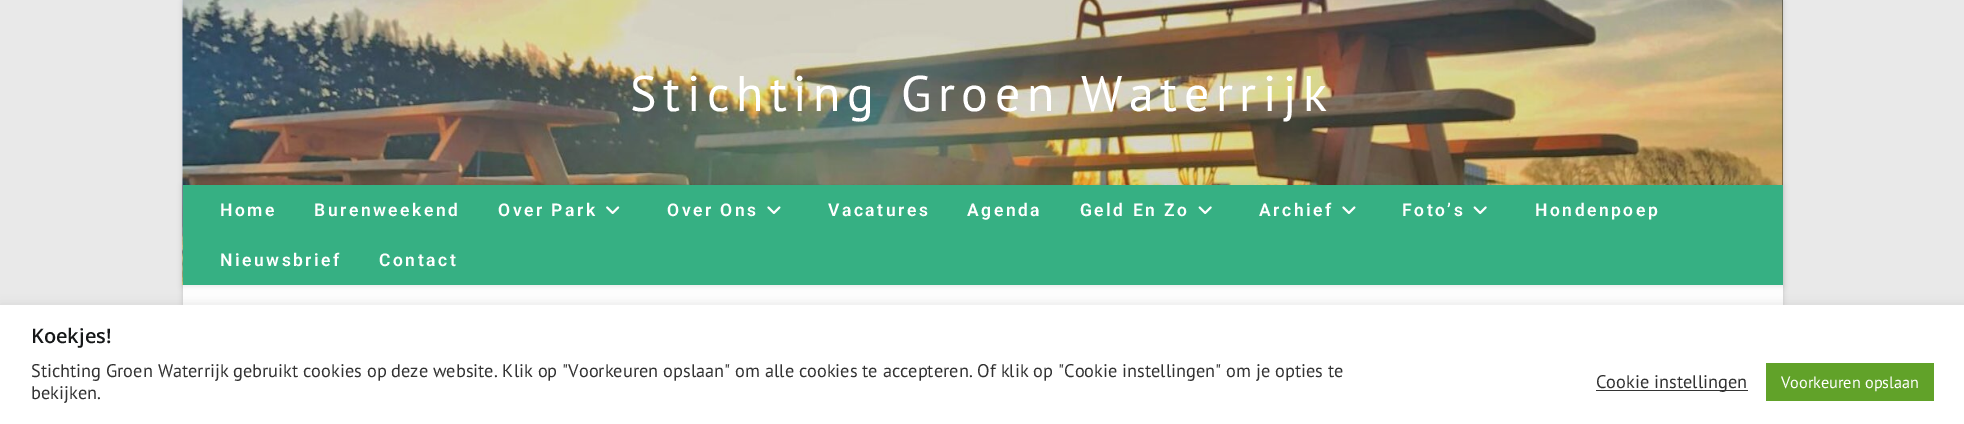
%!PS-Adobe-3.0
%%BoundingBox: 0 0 1964 424
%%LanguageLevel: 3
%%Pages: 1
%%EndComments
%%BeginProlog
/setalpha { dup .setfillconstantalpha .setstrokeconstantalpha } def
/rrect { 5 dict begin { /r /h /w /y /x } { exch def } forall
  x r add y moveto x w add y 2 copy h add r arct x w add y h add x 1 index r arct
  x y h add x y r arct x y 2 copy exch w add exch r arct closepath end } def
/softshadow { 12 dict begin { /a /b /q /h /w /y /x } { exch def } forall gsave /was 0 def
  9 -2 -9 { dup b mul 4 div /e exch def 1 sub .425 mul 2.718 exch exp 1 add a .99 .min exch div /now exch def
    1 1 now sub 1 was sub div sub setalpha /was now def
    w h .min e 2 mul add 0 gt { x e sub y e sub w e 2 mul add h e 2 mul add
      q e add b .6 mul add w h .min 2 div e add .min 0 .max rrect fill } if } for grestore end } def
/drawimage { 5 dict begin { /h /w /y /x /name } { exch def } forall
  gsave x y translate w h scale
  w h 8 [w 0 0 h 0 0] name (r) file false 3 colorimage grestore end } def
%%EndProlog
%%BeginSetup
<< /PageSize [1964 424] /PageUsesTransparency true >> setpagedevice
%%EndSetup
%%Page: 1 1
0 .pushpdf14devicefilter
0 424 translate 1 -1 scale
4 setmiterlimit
0.914 setgray
0 0 1964 424 rectfill
0 setgray
183 1 1600 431 0 2.5 0.15 softshadow
1 setgray
183 285 1600 20 rectfill
0.086 0.094 0.098 setrgbcolor
1782 0 1 185 rectfill
(images/1.raw) 182 0 1601 285 drawimage
0.1 setalpha
0.827 0.718 0.165 setrgbcolor
183 0 1600 185 rectfill
1 setalpha
0 setgray
183 186 1600 100 0 3 0.1 softshadow
0.212 0.69 0.514 setrgbcolor
183 185 1600 100 rectfill
(images/2.raw) 606 206 14 8 drawimage
(images/3.raw) 767 206 14 8 drawimage
(images/4.raw) 1198 206 14 8 drawimage
(images/3.raw) 1342 206 14 8 drawimage
(images/4.raw) 1473 206 14 8 drawimage
0.675 0.671 0.671 setrgbcolor
0 304 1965 120 0 6 0.3 softshadow
1 setgray
0 305 1964 119 rectfill
0.2 setgray
1596 390 152 1 rectfill
0.38 0.635 0.161 setrgbcolor
1766 363 168 38 rectfill
/PTSans-Regular [50 0 0 -50 0 0] selectfont
1 setgray
630 111 moveto 6.6 0 (Stichting Groen Waterrijk) ashow
/Roboto-SemiBold [17.5 0 0 -17.5 0 0] selectfont
220 216 moveto 2.5 0 (Home) ashow
314 216 moveto 2.5 0 (Burenweekend) ashow
498 216 moveto 2.5 0 (Over Park) ashow
667 216 moveto 2.5 0 (Over Ons) ashow
828 216 moveto 2.5 0 (Vacatures) ashow
967 216 moveto 2.5 0 (Agenda) ashow
1080 216 moveto 2.5 0 (Geld En Zo) ashow
1259 216 moveto 2.5 0 (Archief) ashow
1402 216 moveto 2.5 0 (Foto’s) ashow
1535 216 moveto 2.5 0 (Hondenpoep) ashow
220 266 moveto 2.5 0 (Nieuwsbrief) ashow
379 266 moveto 2.5 0 (Contact) ashow
/OpenSans-SemiBold [20 0 0 -20 0 0] selectfont
0.086 0.094 0.098 setrgbcolor
31 343 moveto (Koekjes!) show
/PTSans-Regular [18.33 0 0 -18.33 0 0] selectfont
0.2 setgray
31 377 moveto (Stichting Groen Waterrijk gebruikt cookies op deze website. Klik op "Voorkeuren opslaan" om alle cookies te accepteren. Of klik op "Cookie instellingen" om je opties te) show
31 399 moveto (bekijken.) show
1596 388 moveto (Cookie instellingen) show
/PTSans-Regular [16.25 0 0 -16.25 0 0] selectfont
1 setgray
1781 388 moveto (Voorkeuren opslaan) show
.poppdf14devicefilter showpage
%%EOF
